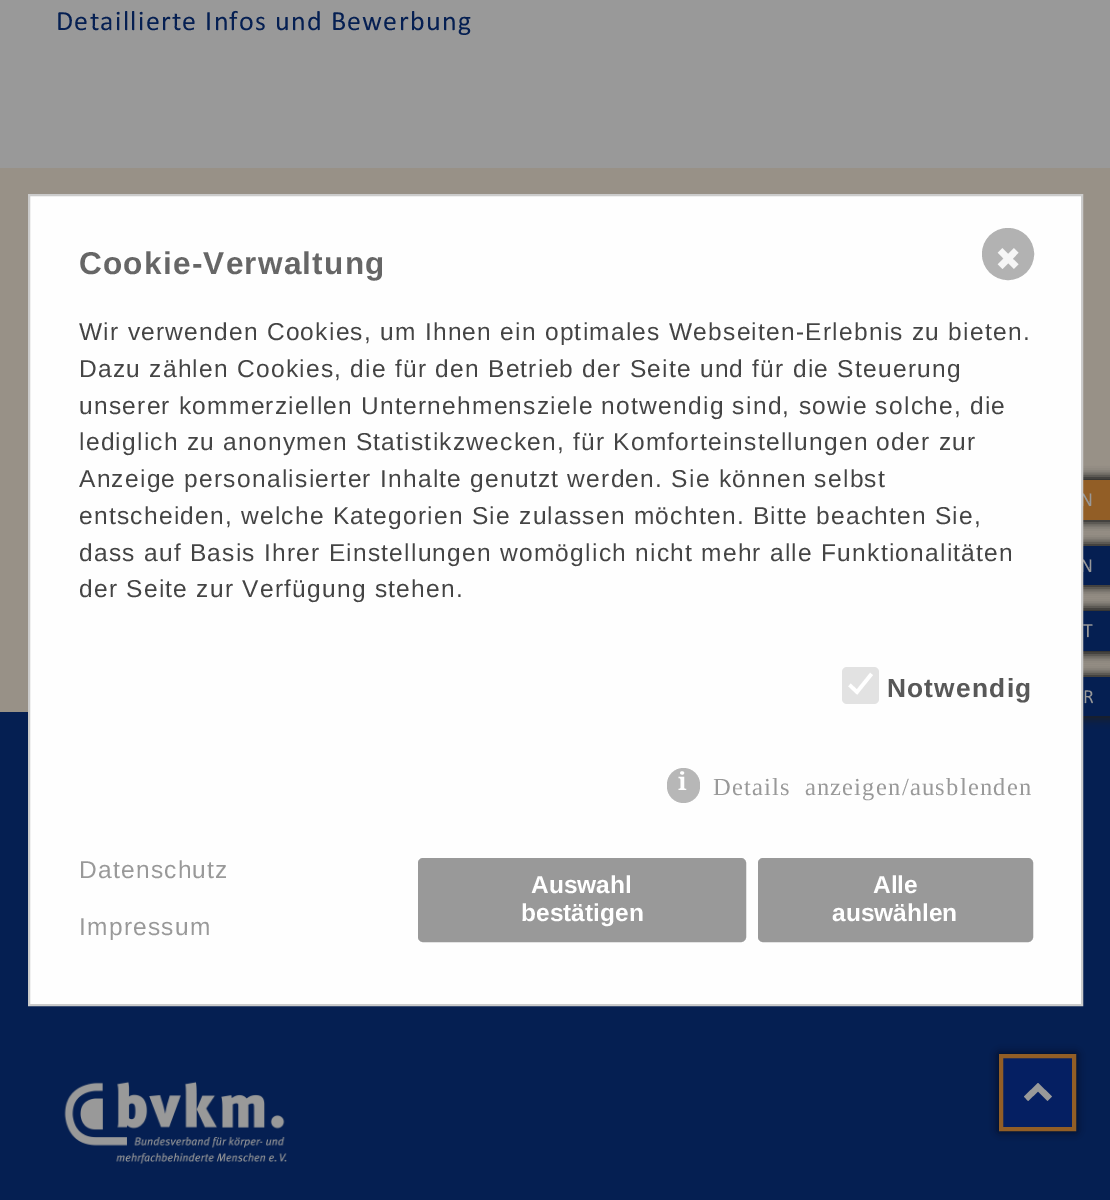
%!PS-Adobe-3.0
%%BoundingBox: 0 0 1110 1200
%%LanguageLevel: 3
%%Pages: 1
%%EndComments
%%BeginProlog
/setalpha { dup .setfillconstantalpha .setstrokeconstantalpha } def
/rrect { 5 dict begin { /r /h /w /y /x } { exch def } forall
  x r add y moveto x w add y 2 copy h add r arct x w add y h add x 1 index r arct
  x y h add x y r arct x y 2 copy exch w add exch r arct closepath end } def
/softshadow { 12 dict begin { /a /b /q /h /w /y /x } { exch def } forall gsave /was 0 def
  9 -2 -9 { dup b mul 4 div /e exch def 1 sub .425 mul 2.718 exch exp 1 add a .99 .min exch div /now exch def
    1 1 now sub 1 was sub div sub setalpha /was now def
    w h .min e 2 mul add 0 gt { x e sub y e sub w e 2 mul add h e 2 mul add
      q e add b .6 mul add w h .min 2 div e add .min 0 .max rrect fill } if } for grestore end } def
/drawimage { 5 dict begin { /h /w /y /x /name } { exch def } forall
  gsave x y translate w h scale
  w h 8 [w 0 0 h 0 0] name (r) file false 3 colorimage grestore end } def
%%EndProlog
%%BeginSetup
<< /PageSize [1110 1200] /PageUsesTransparency true >> setpagedevice
%%EndSetup
%%Page: 1 1
0 .pushpdf14devicefilter
0 1200 translate 1 -1 scale
4 setmiterlimit
0.6 setgray
0 0 1110 1200 rectfill
0.596 0.569 0.529 setrgbcolor
0 168 1110 544 rectfill
0.122 setgray
889 476 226 47 0 4.5 1 softshadow
0.573 0.369 0.149 setrgbcolor
1083 480 27 40 rectfill
0.122 setgray
889 543 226 45 0 4.5 1 softshadow
0.02 0.122 0.322 setrgbcolor
1083 546 27 39 rectfill
0.122 setgray
889 607 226 48 0 4.5 1 softshadow
0.02 0.122 0.322 setrgbcolor
1083 611 27 40 rectfill
0 712 1110 488 rectfill
0.122 setgray
889 674 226 45 0 4.5 1 softshadow
0.02 0.122 0.322 setrgbcolor
1083 677 27 39 rectfill
(images/1.raw) 64 1081 223 83 drawimage
0 setgray
999 1054 77 77 0 4.5 0.7 softshadow
0.02 0.122 0.384 setrgbcolor
1003 1058 69 69 rectfill
0.6 setgray
newpath 1038 1083 moveto 1052 1096.5 lineto 1047.5 1101 lineto 1038 1091.5 lineto 1028 1101 lineto 1024 1096.5 lineto closepath fill
0.573 0.369 0.149 setrgbcolor
4 setlinewidth
1001 1056 73 73 rectstroke
/Calibri-Regular [28 0 0 -28 0 0] selectfont
0.02 0.122 0.322 setrgbcolor
56 30 moveto 1.25 0 (Detaillierte Infos und Bewerbung) ashow
/Calibri-Regular [20 0 0 -20 0 0] selectfont
0.6 setgray
1080 506 moveto 1.25 0 (N) ashow
1080 572 moveto 1.25 0 (N) ashow
1083 637 moveto 1.25 0 (T) ashow
1083 703 moveto (R) show
0.996 setgray
newpath 29 195 moveto 1082 195 lineto 1082 1005 lineto 29 1005 lineto closepath gsave fill grestore
0.796 setgray
2 setlinewidth
stroke
0.698 setgray
newpath 1008 254 24 0 360 arc closepath gsave fill grestore
4 setlinewidth
stroke
/DejaVuSans-Regular [31.5 0 0 -31.5 0 0] selectfont
0.965 setgray
995 270 moveto (✖) show
/LiberationSans-Bold [31.5 0 0 -31.5 0 0] selectfont
0.4 setgray
79 274 moveto 1.25 0 (Cookie-Verwaltung) ashow
/LiberationSans-Regular [24.5 0 0 -24.5 0 0] selectfont
0.267 setgray
79 340 moveto 1.25 0 (Wir verwenden Cookies, um Ihnen ein optimales Webseiten-Erlebnis zu bieten.) ashow
79 377 moveto 1.25 0 (Dazu zählen Cookies, die für den Betrieb der Seite und für die Steuerung) ashow
79 414 moveto 1.25 0 (unserer kommerziellen Unternehmensziele notwendig sind, sowie solche, die) ashow
79 450 moveto 1.25 0 (lediglich zu anonymen Statistikzwecken, für Komforteinstellungen oder zur) ashow
79 487 moveto 1.25 0 (Anzeige personalisierter Inhalte genutzt werden. Sie können selbst) ashow
79 524 moveto 1.25 0 (entscheiden, welche Kategorien Sie zulassen möchten. Bitte beachten Sie,) ashow
79 561 moveto 1.25 0 (dass auf Basis Ihrer Einstellungen womöglich nicht mehr alle Funktionalitäten) ashow
79 597 moveto 1.25 0 (der Seite zur Verfügung stehen.) ashow
0.886 setgray
842 667 37 37 5 rrect fill
1 setgray
3.6 setlinewidth
newpath 849.5 685 moveto 857 692 lineto 871.5 674 lineto stroke
/LiberationSans-Bold [26.25 0 0 -26.25 0 0] selectfont
0.345 setgray
887 697 moveto 1.25 0 (Notwendig) ashow
0.718 setgray
667 768 33 35 16.5 rrect fill
/NotoSerif-Bold [24.5 0 0 -24.5 0 0] selectfont
1 setgray
678 790 moveto 1.25 0 (i) ashow
/LiberationSerif-Regular [24.5 0 0 -24.5 0 0] selectfont
0.6 setgray
713 795 moveto 6 0 32 1.25 0 (Details anzeigen/ausblenden) awidthshow
/LiberationSans-Regular [24.5 0 0 -24.5 0 0] selectfont
79 878 moveto 1.25 0 (Datenschutz) ashow
79 935 moveto 1.25 0 (Impressum) ashow
419 859 326 82 4 rrect gsave fill grestore
2 setlinewidth
stroke
/LiberationSans-Bold [24.5 0 0 -24.5 0 0] selectfont
1 setgray
531 893 moveto (Auswahl) show
521 921 moveto (bestätigen) show
0.6 setgray
759 859 273 82 4 rrect gsave fill grestore
stroke
1 setgray
873 893 moveto (Alle) show
832 921 moveto (auswählen) show
.poppdf14devicefilter showpage
%%EOF
